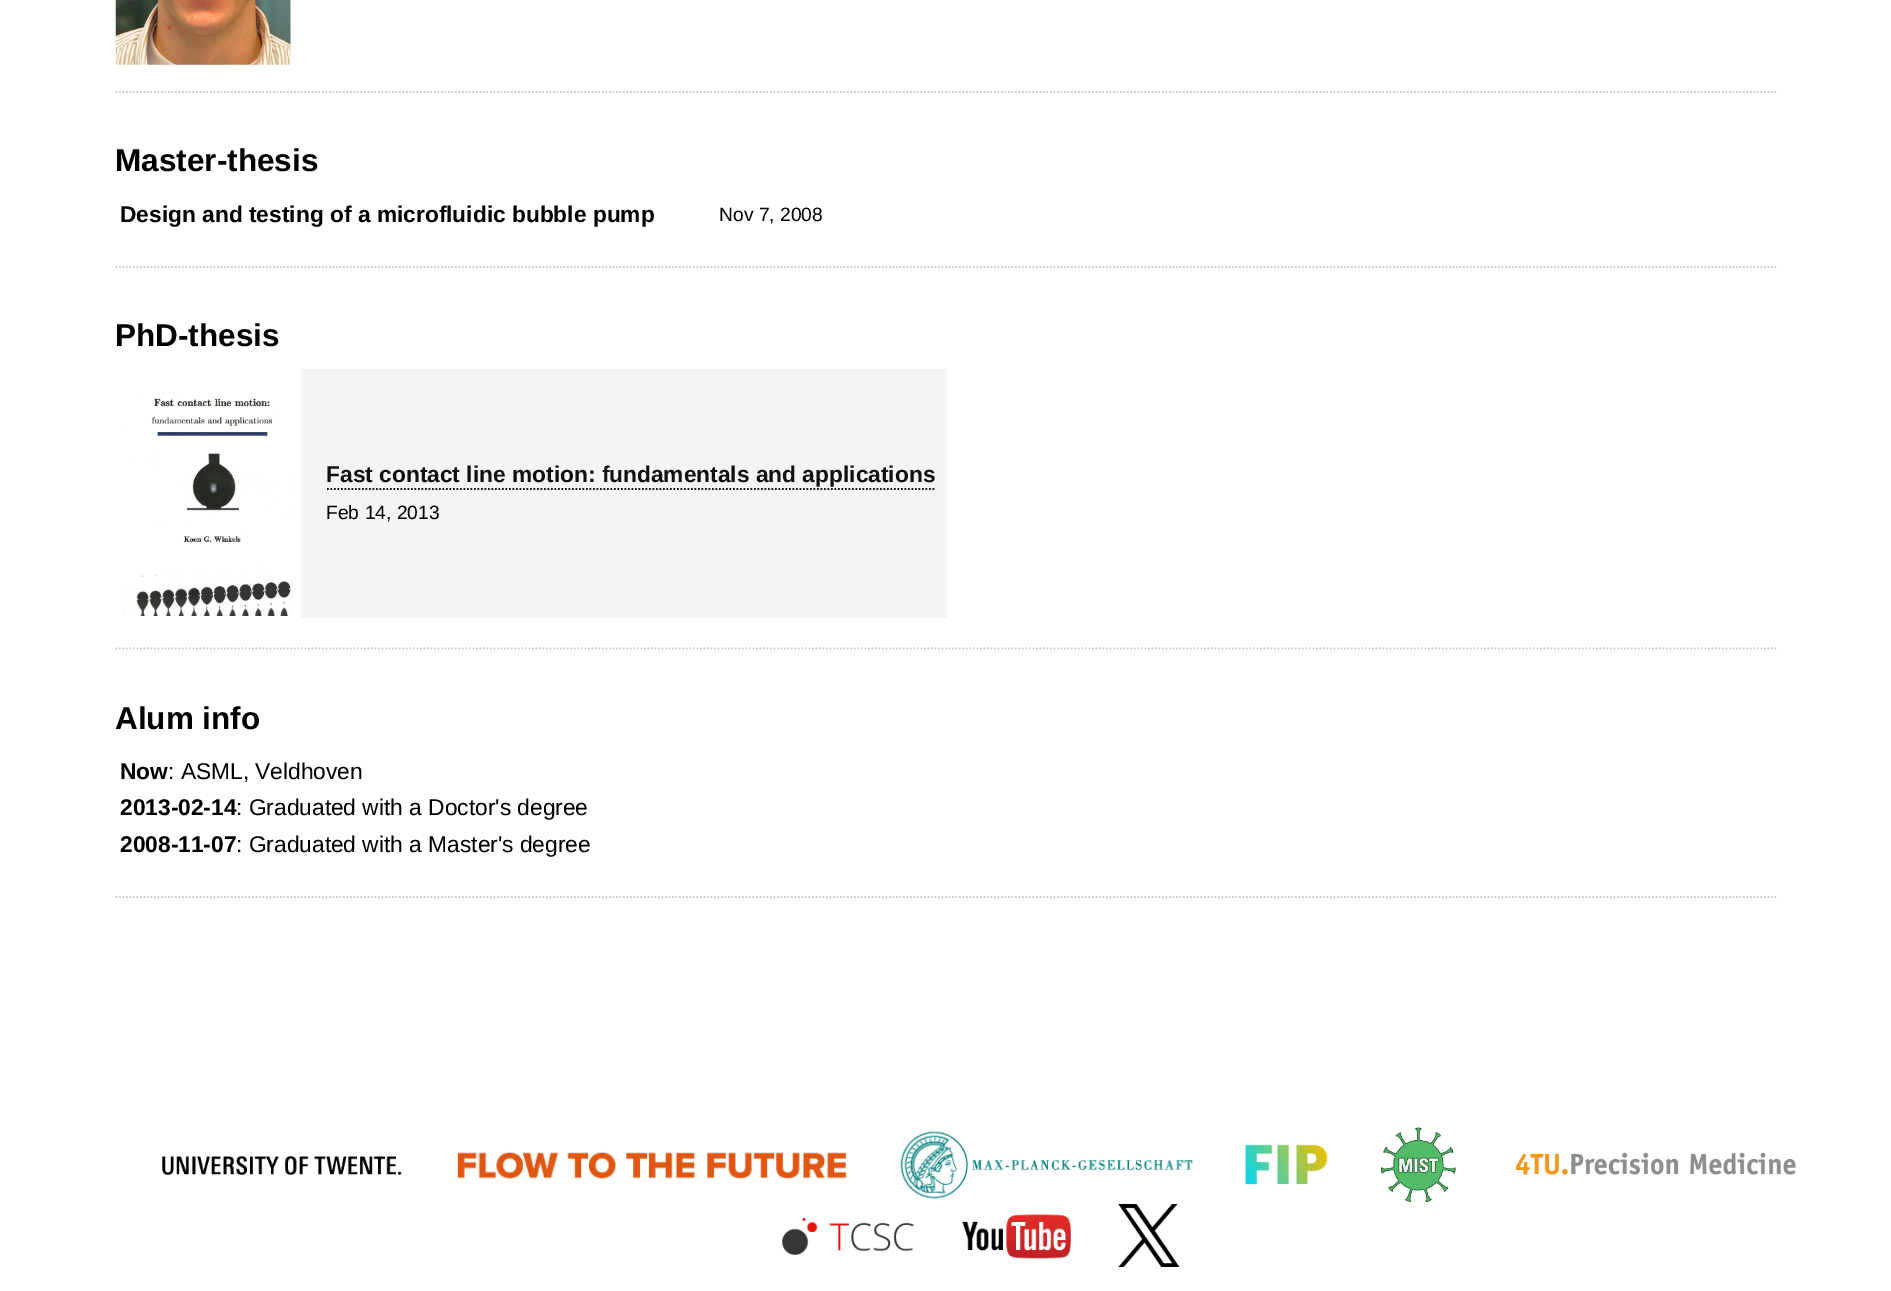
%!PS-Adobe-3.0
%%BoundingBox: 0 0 1891 1291
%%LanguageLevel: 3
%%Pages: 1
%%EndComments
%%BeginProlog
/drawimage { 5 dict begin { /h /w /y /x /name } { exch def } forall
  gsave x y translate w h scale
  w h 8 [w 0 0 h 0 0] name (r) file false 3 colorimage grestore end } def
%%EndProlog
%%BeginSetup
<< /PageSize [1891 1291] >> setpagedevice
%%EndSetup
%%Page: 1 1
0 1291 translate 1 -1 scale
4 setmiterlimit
1 setgray
0 0 1891 1291 rectfill
0.8 setgray
1.8 setlinewidth
[1.75 1.75] 0 setdash
newpath 115.5 92 moveto 1778 92 lineto stroke
(images/1.raw) 115 0 176 65 drawimage
newpath 115.5 267 moveto 1778 267 lineto stroke
newpath 115.5 648.5 moveto 1778 648.5 lineto stroke
(images/2.raw) 122 393 171 223 drawimage
0.957 setgray
301 369 646 249 rectfill
0.067 setgray
newpath 327 489 moveto 936 489 lineto stroke
0.8 setgray
newpath 115.5 897 moveto 1778 897 lineto stroke
(images/3.raw) 162 1156 240 19 drawimage
(images/4.raw) 457 1151 390 28 drawimage
(images/5.raw) 900 1131 293 68 drawimage
(images/6.raw) 1245 1144 83 41 drawimage
(images/7.raw) 1380 1127 76 75 drawimage
(images/8.raw) 1515 1152 281 23 drawimage
(images/9.raw) 782 1218 132 37 drawimage
(images/10.raw) 962 1214 109 45 drawimage
(images/11.raw) 1118 1204 62 63 drawimage
/LiberationSans-Bold [31.5 0 0 -31.5 0 0] selectfont
0 setgray
115 171 moveto (Master-thesis) show
/LiberationSans-Bold [22.75 0 0 -22.75 0 0] selectfont
120 222 moveto (Design and testing of a microfluidic bubble pump) show
/LiberationSans-Regular [19.25 0 0 -19.25 0 0] selectfont
719 221 moveto (Nov 7, 2008) show
/LiberationSans-Bold [31.5 0 0 -31.5 0 0] selectfont
115 346 moveto (PhD-thesis) show
/LiberationSans-Bold [22.75 0 0 -22.75 0 0] selectfont
0.067 setgray
326 482 moveto (Fast contact line motion: fundamentals and applications) show
/LiberationSans-Regular [19.25 0 0 -19.25 0 0] selectfont
0 setgray
326 519 moveto (Feb 14, 2013) show
/LiberationSans-Bold [31.5 0 0 -31.5 0 0] selectfont
115 729 moveto (Alum info) show
/LiberationSans-Bold [22.75 0 0 -22.75 0 0] selectfont
120 779 moveto (Now) show
/LiberationSans-Regular [22.75 0 0 -22.75 0 0] selectfont
168 779 moveto (: ASML, Veldhoven) show
/LiberationSans-Bold [22.75 0 0 -22.75 0 0] selectfont
120 815 moveto (2013-02-14) show
/LiberationSans-Regular [22.75 0 0 -22.75 0 0] selectfont
236 815 moveto (: Graduated with a Doctor's degree) show
/LiberationSans-Bold [22.75 0 0 -22.75 0 0] selectfont
120 852 moveto (2008-11-07) show
/LiberationSans-Regular [22.75 0 0 -22.75 0 0] selectfont
236 852 moveto (: Graduated with a Master's degree) show
showpage
%%EOF
